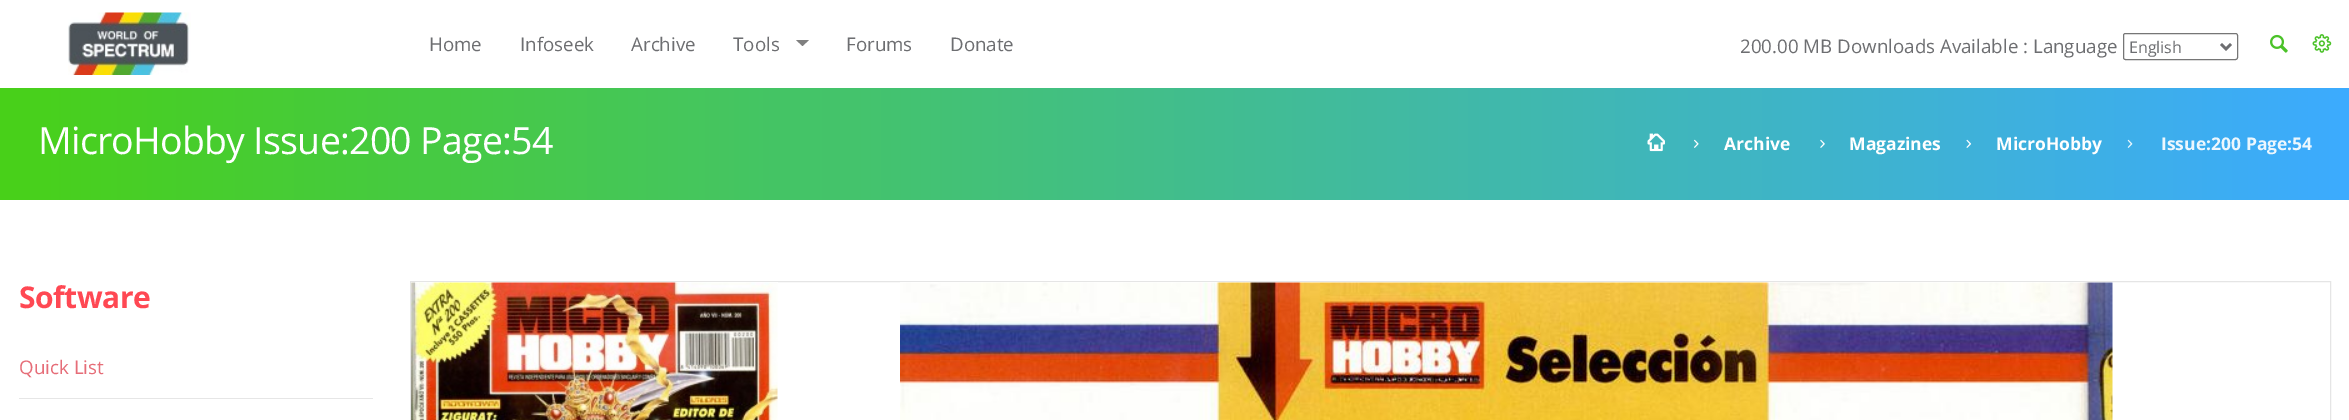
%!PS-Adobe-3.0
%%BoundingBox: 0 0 2349 420
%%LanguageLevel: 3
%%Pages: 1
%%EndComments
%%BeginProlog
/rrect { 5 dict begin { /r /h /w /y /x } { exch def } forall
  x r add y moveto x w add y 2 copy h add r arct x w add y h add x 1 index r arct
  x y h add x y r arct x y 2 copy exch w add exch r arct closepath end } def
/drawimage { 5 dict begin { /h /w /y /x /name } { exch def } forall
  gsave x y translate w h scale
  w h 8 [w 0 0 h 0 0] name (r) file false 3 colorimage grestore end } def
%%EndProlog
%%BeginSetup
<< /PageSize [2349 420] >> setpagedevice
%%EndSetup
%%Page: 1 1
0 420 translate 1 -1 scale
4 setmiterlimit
1 setgray
0 0 2349 420 rectfill
(images/1.raw) 68 12 123 63 drawimage
0.502 setgray
newpath 796 40 moveto 809 40 lineto 802.5 46 lineto closepath fill
0.463 setgray
2123.5 33.5 114 26 2 rrect stroke
0.427 0.431 0.443 setrgbcolor
2.5 setlinewidth
newpath 2221 44 moveto 2226 49 lineto 2231 44 lineto stroke
(images/2.raw) 2270 34 18 19 drawimage
(images/3.raw) 2312 34 20 19 drawimage
gsave newpath 0 88 moveto 2349 88 lineto 2349 200 lineto 0 200 lineto closepath clip newpath
<< /ShadingType 2 /ColorSpace /DeviceRGB /Coords [0 144 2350 144] /Extend [true true] /Function << /FunctionType 2 /Domain [0 1] /C0 [0.286 0.82 0.098] /C1 [0.235 0.671 1] /N 1 >> >> shfill grestore
(images/4.raw) 1647 133 18 19 drawimage
(images/5.raw) 1694 139 5 9 drawimage
(images/6.raw) 1820 139 5 9 drawimage
(images/7.raw) 1966 139 6 9 drawimage
(images/8.raw) 2127 139 6 9 drawimage
0.902 setgray
19 398 354 1 rectfill
0.898 setgray
1 setlinewidth
410.5 281.5 1920 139 rectstroke
(images/9.raw) 411 282 367 138 drawimage
(images/10.raw) 900 282 1213 138 drawimage
/OpenSans-Regular [18.75 0 0 -18.75 0 0] selectfont
0.427 0.431 0.443 setrgbcolor
429 51 moveto (Home) show
520 51 moveto (Infoseek) show
631 51 moveto (Archive) show
733 51 moveto (Tools) show
846 51 moveto (Forums) show
950 51 moveto (Donate) show
1740 53 moveto (200.00 MB Downloads Available : Language) show
/OpenSans-Regular [16 0 0 -16 0 0] selectfont
2129 53 moveto (English) show
/OpenSans-Regular [37.5 0 0 -37.5 0 0] selectfont
1 setgray
38 154 moveto -0.75 0 (MicroHobby Issue:200 Page:54) ashow
/OpenSans-Bold [17.5 0 0 -17.5 0 0] selectfont
1724 150 moveto (Archive) show
1849 150 moveto (Magazines) show
1996 150 moveto (MicroHobby) show
0.925 0.969 0.996 setrgbcolor
2161 150 moveto (Issue:200 Page:54) show
/OpenSans-Bold [30 0 0 -30 0 0] selectfont
1 0.282 0.325 setrgbcolor
19 308 moveto -0.5 0 (Software) ashow
/OpenSans-Regular [18.75 0 0 -18.75 0 0] selectfont
0.902 0.427 0.471 setrgbcolor
19 374 moveto (Quick List) show
showpage
%%EOF
